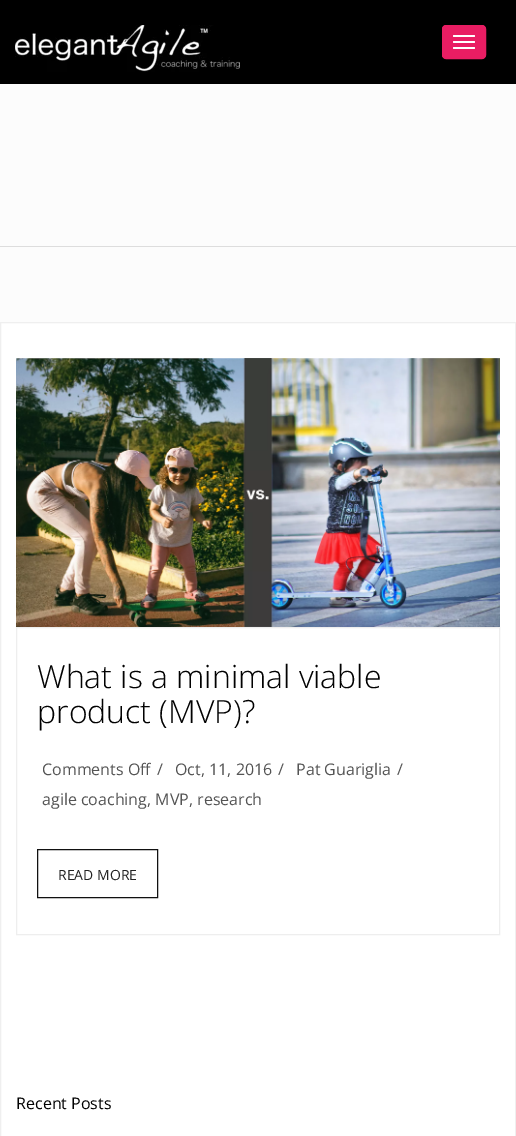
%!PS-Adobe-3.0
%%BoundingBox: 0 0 516 1136
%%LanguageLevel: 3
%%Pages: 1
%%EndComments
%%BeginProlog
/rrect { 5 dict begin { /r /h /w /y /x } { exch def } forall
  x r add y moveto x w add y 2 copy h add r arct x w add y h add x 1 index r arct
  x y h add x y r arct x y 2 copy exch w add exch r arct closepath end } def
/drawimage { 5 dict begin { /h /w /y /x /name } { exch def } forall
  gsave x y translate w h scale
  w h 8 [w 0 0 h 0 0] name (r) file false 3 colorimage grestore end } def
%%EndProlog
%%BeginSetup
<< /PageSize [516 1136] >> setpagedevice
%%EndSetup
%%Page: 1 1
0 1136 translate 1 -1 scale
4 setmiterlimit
0.988 setgray
0 0 516 1136 rectfill
0 setgray
0 0 516 84 rectfill
(images/1.raw) 15 25 225 47 drawimage
0.914 0.114 0.388 setrgbcolor
442.5 25.5 43 33 3.5 rrect gsave fill grestore
stroke
1 setgray
453 35 22 2 1 rrect fill
453 41 22 2 1 rrect fill
453 47 22 2 1 rrect fill
0.867 setgray
0 246 516 1 rectfill
1 setgray
newpath 0.5 322.5 moveto 515.5 322.5 lineto 515.5 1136.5 lineto 0.5 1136.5 lineto closepath gsave fill grestore
0.937 setgray
stroke
(images/2.raw) 16 358 484 269 drawimage
0.933 setgray
16.5 627.5 483 307 rectstroke
0.067 setgray
37.5 849.5 120 48 rectstroke
/OpenSans-Light [32 0 0 -32 0 0] selectfont
0.004 setgray
37 688 moveto (What is a minimal viable) show
37 723 moveto (product \(MVP\)?) show
/OpenSans-Regular [16 0 0 -16 0 0] selectfont
0.329 setgray
42 775 moveto (Comments Off) show
157 775 moveto (/) show
175 775 moveto (Oct, 11, 2016) show
278 775 moveto (/) show
296 775 moveto (Pat Guariglia) show
397 775 moveto (/) show
42 805 moveto (agile coaching, MVP, research) show
/OpenSans-Regular [14 0 0 -14 0 0] selectfont
0.133 setgray
58 880 moveto (READ MORE) show
/OpenSans-Regular [16 0 0 -16 0 0] selectfont
0.004 setgray
16 1109 moveto (Recent Posts) show
showpage
%%EOF
